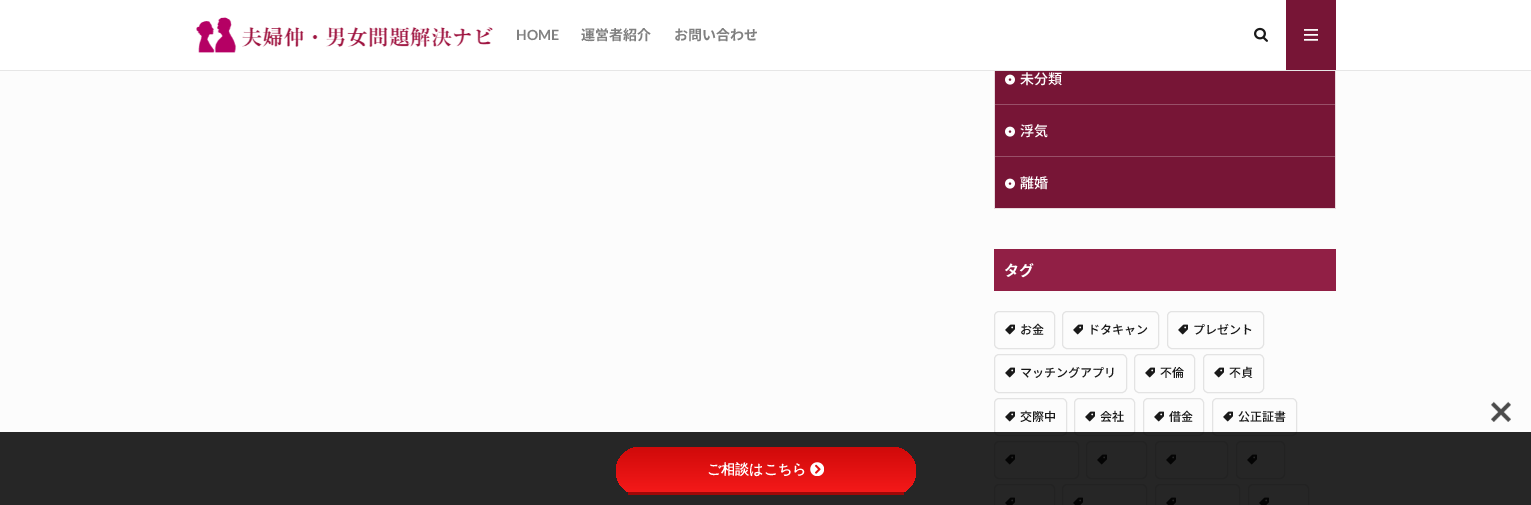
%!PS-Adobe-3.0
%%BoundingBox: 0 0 1531 505
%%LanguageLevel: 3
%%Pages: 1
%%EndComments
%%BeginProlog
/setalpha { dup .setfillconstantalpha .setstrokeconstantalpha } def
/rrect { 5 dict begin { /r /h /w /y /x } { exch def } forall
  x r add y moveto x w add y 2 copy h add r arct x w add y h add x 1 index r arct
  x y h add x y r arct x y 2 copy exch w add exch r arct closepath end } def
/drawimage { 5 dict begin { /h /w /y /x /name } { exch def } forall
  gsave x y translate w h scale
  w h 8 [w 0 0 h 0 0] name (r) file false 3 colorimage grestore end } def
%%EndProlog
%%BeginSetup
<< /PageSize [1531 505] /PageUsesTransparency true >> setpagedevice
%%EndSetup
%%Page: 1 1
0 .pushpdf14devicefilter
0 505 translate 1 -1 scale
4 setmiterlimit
0.988 setgray
0 0 1531 505 rectfill
0.91 0.851 0.871 setrgbcolor
newpath 1336 -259 moveto 1336 209 lineto 1335 208 lineto 1335 -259 lineto closepath fill
0.15 setalpha
0.467 0.082 0.212 setrgbcolor
newpath 1336 209 moveto 994 209 lineto 995 208 lineto 1335 208 lineto closepath fill
newpath 994 209 moveto 994 -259 lineto 995 -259 lineto 995 208 lineto closepath fill
1 setalpha
1 setgray
0 0 1531 70 rectfill
0.902 setgray
0 70 1531 1 rectfill
(images/1.raw) 196 17 297 36 drawimage
(images/2.raw) 1254 27 14 15 drawimage
0.467 0.082 0.212 setrgbcolor
1286 0 50 70 rectfill
(images/3.raw) 1304 29 14 12 drawimage
995 71 340 33 rectfill
(images/4.raw) 1005 74 10 11 drawimage
0.596 0.31 0.408 setrgbcolor
995 104 340 1 rectfill
0.467 0.082 0.212 setrgbcolor
995 105 340 51 rectfill
(images/4.raw) 1005 126 10 11 drawimage
0.596 0.31 0.408 setrgbcolor
995 156 340 1 rectfill
0.467 0.082 0.212 setrgbcolor
995 157 340 51 rectfill
(images/4.raw) 1005 178 10 11 drawimage
0.569 0.122 0.271 setrgbcolor
994 249 342 42 rectfill
0.89 setgray
994.5 311.5 60 37 4.5 rrect stroke
(images/5.raw) 1005 324 10 11 drawimage
1062.5 311.5 96 37 4.5 rrect stroke
(images/5.raw) 1073 324 10 11 drawimage
1167.5 311.5 96 37 4.5 rrect stroke
(images/5.raw) 1178 324 10 11 drawimage
994.5 354.5 132 38 4.5 rrect stroke
(images/5.raw) 1005 367 10 11 drawimage
1134.5 354.5 60 38 4.5 rrect stroke
(images/5.raw) 1145 367 10 11 drawimage
1203.5 354.5 60 38 4.5 rrect stroke
(images/5.raw) 1214 367 10 11 drawimage
994.5 398.5 72 37 4.5 rrect stroke
(images/5.raw) 1005 411 10 11 drawimage
1074.5 398.5 60 37 4.5 rrect stroke
(images/5.raw) 1085 411 10 11 drawimage
1143.5 398.5 60 37 4.5 rrect stroke
(images/5.raw) 1154 411 10 11 drawimage
1212.5 398.5 84 37 4.5 rrect stroke
(images/5.raw) 1223 411 10 11 drawimage
994.5 441.5 84 37 4.5 rrect stroke
(images/5.raw) 1005 454 10 11 drawimage
1086.5 441.5 60 37 4.5 rrect stroke
(images/5.raw) 1097 454 10 11 drawimage
1155.5 441.5 72 37 4.5 rrect stroke
(images/5.raw) 1166 454 10 11 drawimage
1236.5 441.5 48 37 4.5 rrect stroke
(images/5.raw) 1247 454 10 11 drawimage
994.5 484.5 60 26 4.5 rrect stroke
(images/6.raw) 1005 497 10 8 drawimage
1062.5 484.5 84 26 4.5 rrect stroke
(images/6.raw) 1073 497 10 8 drawimage
1155.5 484.5 84 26 4.5 rrect stroke
(images/6.raw) 1166 497 10 8 drawimage
1248.5 484.5 60 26 4.5 rrect stroke
(images/6.raw) 1259 497 10 8 drawimage
0.85 setalpha
0 setgray
0 432 1531 73 rectfill
1 setalpha
(images/7.raw) 1491 401 20 21 drawimage
gsave
616 447 300 48 24 rrect clip newpath
gsave newpath 640 447 moveto 892 447 lineto 905.5 447 916 457.5 916 471 curveto 916 492 lineto 616 492 lineto 616 471 lineto 616 457.5 626.5 447 640 447 curveto closepath clip newpath
<< /ShadingType 2 /ColorSpace /DeviceRGB /Coords [766 447 766 492] /Extend [true true] /Function << /FunctionType 2 /Domain [0 1] /C0 [0.816 0.039 0.039] /C1 [0.957 0.098 0.098] /N 1 >> >> shfill grestore
grestore
0.624 0.031 0.031 setrgbcolor
628 492 276 3 rectfill
(images/8.raw) 810 462 14 14 drawimage
/Lato-Bold [14 0 0 -14 0 0] selectfont
0.502 setgray
516 40 moveto (HOME) show
/NotoSansJP-Bold [14 0 0 -14 0 0] selectfont
581 40 moveto (運営者紹介) show
674 40 moveto (お問い合わせ) show
/NotoSansJP-Medium [14 0 0 -14 0 0] selectfont
1 setgray
1020 84 moveto (未分類) show
1020 136 moveto (浮気) show
1020 188 moveto (離婚) show
/NotoSansJP-Bold [15 0 0 -15 0 0] selectfont
1004 276 moveto (タグ) show
/NotoSansJP-Medium [12 0 0 -12 0 0] selectfont
0.098 setgray
1020 334 moveto (お金) show
1088 334 moveto (ドタキャン) show
1193 334 moveto (プレゼント) show
1020 377 moveto (マッチングアプリ) show
1160 377 moveto (不倫) show
1229 377 moveto (不貞) show
1020 421 moveto (交際中) show
1100 421 moveto (会社) show
1169 421 moveto (借金) show
1238 421 moveto (公正証書) show
/WenQuanYiZenHei-Bold [14 0 0 -14 0 0] selectfont
1 setgray
707 474 moveto (ご相談はこちら) show
.poppdf14devicefilter showpage
%%EOF
